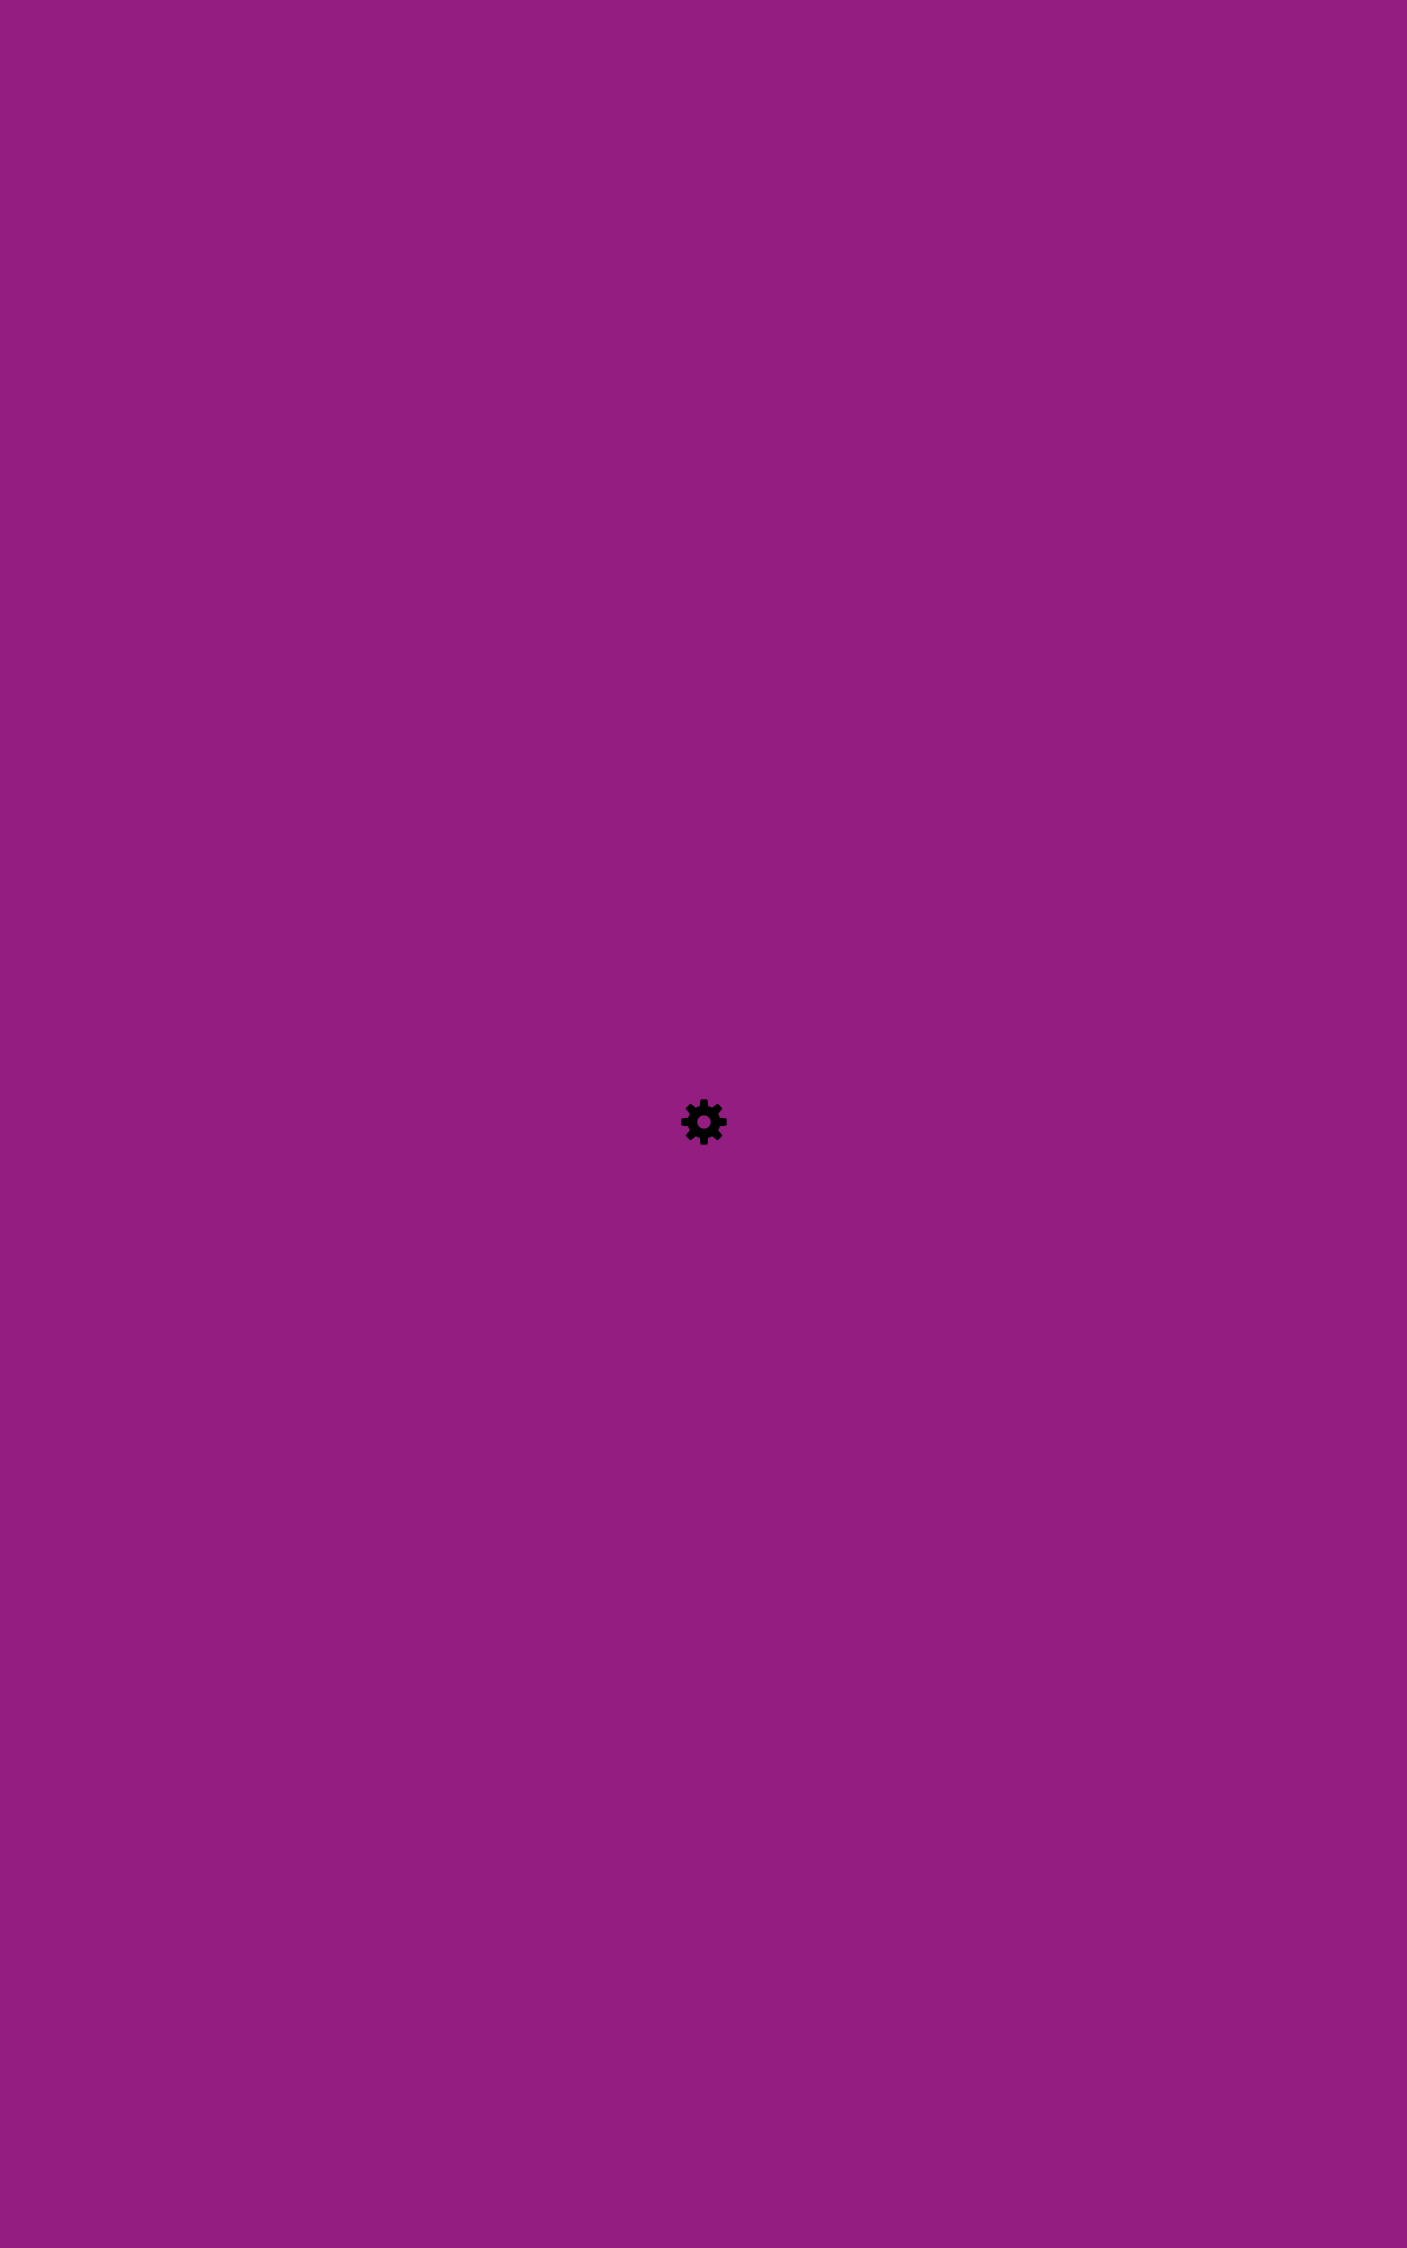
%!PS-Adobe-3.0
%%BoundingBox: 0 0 1407 2248
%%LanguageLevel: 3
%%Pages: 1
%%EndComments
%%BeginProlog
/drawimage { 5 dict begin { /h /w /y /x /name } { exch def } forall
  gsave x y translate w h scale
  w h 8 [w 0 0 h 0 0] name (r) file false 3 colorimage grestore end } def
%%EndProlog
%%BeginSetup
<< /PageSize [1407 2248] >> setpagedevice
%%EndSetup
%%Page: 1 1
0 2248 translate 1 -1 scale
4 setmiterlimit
0.58 0.114 0.506 setrgbcolor
0 0 1407 2248 rectfill
(images/1.raw) 681 1099 46 46 drawimage
showpage
%%EOF
